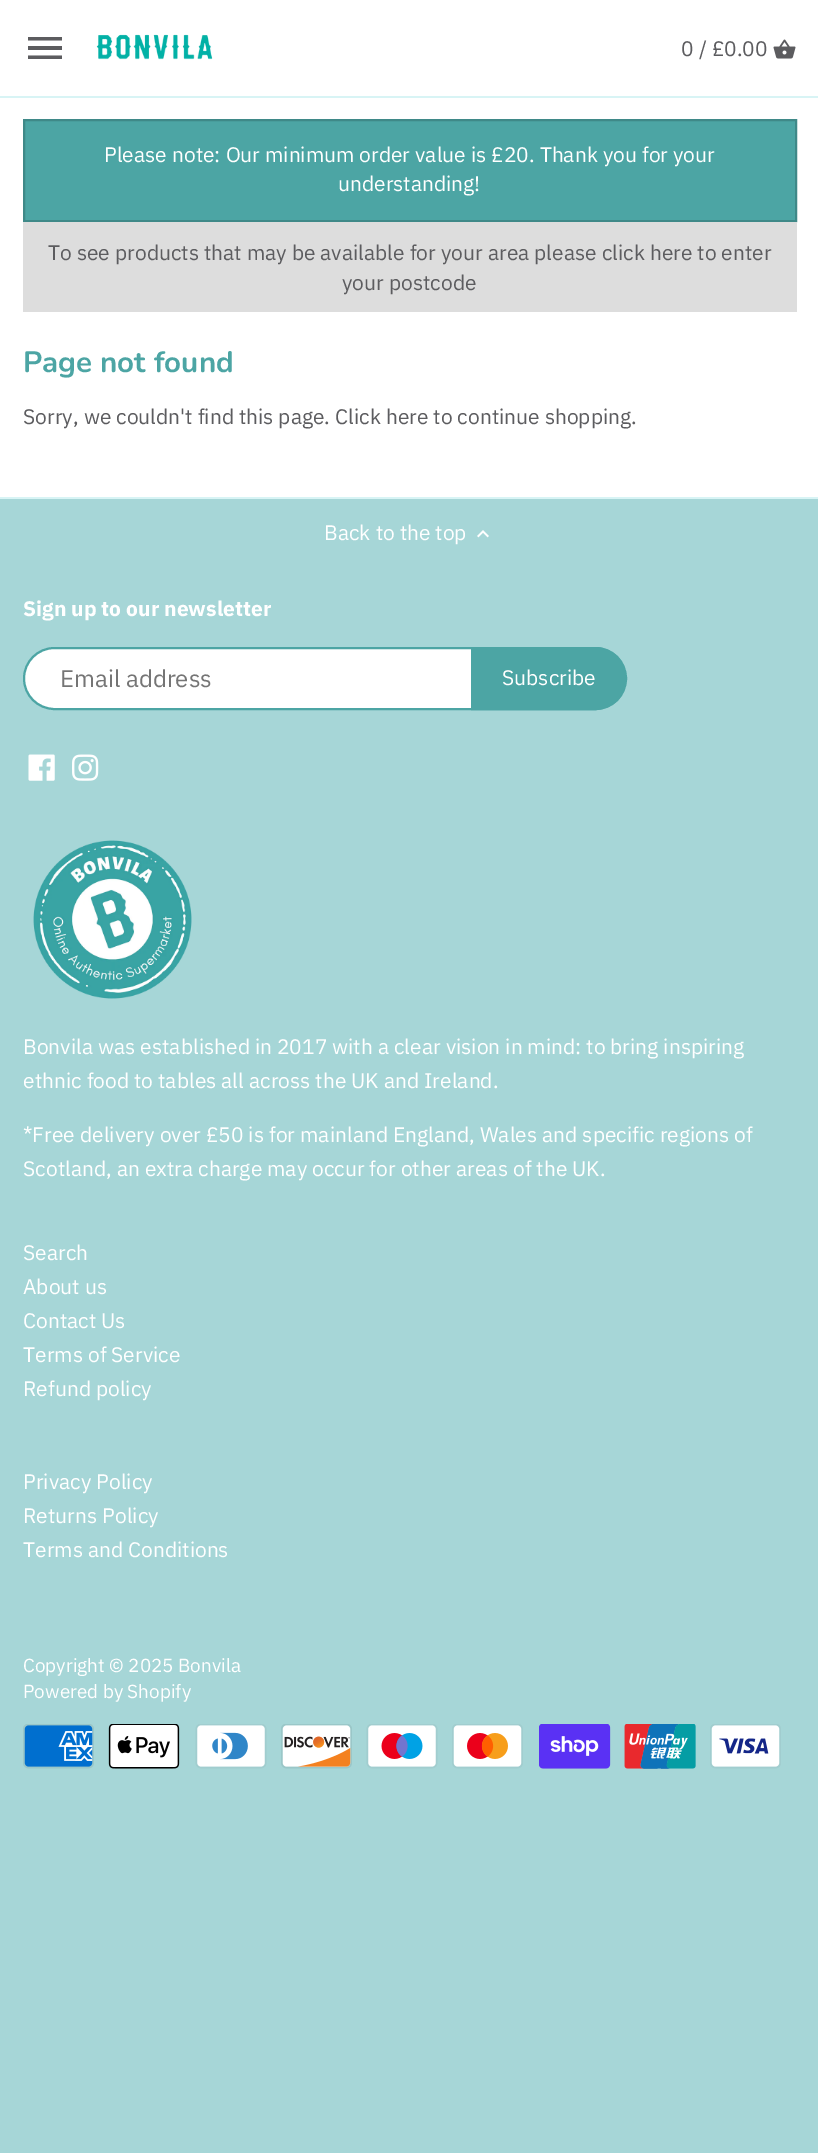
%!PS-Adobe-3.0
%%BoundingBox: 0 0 818 2153
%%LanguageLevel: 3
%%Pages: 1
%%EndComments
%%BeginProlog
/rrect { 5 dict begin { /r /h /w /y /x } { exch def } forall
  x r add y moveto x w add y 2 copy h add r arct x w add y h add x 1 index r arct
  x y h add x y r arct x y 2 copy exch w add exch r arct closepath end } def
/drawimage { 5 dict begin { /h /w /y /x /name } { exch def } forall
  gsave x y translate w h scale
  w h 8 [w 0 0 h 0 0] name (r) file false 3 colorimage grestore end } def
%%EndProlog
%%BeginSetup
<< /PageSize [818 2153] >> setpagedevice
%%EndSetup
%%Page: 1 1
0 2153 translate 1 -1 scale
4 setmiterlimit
0.651 0.839 0.843 setrgbcolor
0 0 818 2153 rectfill
1 setgray
0 0 818 497 rectfill
0.847 0.957 0.961 setrgbcolor
0 96 818 2 rectfill
0.361 0.361 0.373 setrgbcolor
newpath 28 59 moveto 62 59 lineto 62 55.5 lineto 28 55.5 lineto closepath 28 50 moveto 62 50 lineto 62 46 lineto 28 46 lineto closepath 28 37 moveto 28 40.5 lineto 62 40.5 lineto 62 37 lineto closepath fill
(images/1.raw) 96 34 117 26 drawimage
(images/2.raw) 773 39 23 20 drawimage
0.298 0.647 0.643 setrgbcolor
newpath 24 120 moveto 796 120 lineto 796 221 lineto 24 221 lineto closepath gsave fill grestore
0.247 0.537 0.533 setrgbcolor
2 setlinewidth
stroke
0.867 setgray
23 222 774 90 rectfill
0.847 0.957 0.961 setrgbcolor
0 497 818 2 rectfill
(images/3.raw) 477 530 12 8 drawimage
1 setgray
24 648 601 61 30.5 rrect gsave fill grestore
0.298 0.647 0.643 setrgbcolor
stroke
newpath 472 648 moveto 595.5 648 lineto 612.5 648 626 661.5 626 678.5 curveto 626 695.5 612.5 709 595.5 709 curveto 472 709 lineto closepath gsave fill grestore
stroke
(images/4.raw) 28 754 27 27 drawimage
(images/5.raw) 72 754 27 27 drawimage
(images/6.raw) 33 840 159 159 drawimage
(images/7.raw) 23 1724 71 45 drawimage
(images/8.raw) 108 1724 72 45 drawimage
(images/9.raw) 195 1724 72 45 drawimage
(images/10.raw) 281 1724 71 45 drawimage
(images/11.raw) 366 1724 72 45 drawimage
(images/12.raw) 452 1724 71 45 drawimage
(images/13.raw) 539 1724 72 45 drawimage
(images/14.raw) 624 1724 72 45 drawimage
(images/15.raw) 710 1724 71 45 drawimage
/IBMPlexSans-Regular [21 0 0 -21 0 0] selectfont
0.361 0.361 0.373 setrgbcolor
681 56 moveto (0 / £0.00) show
1 setgray
104 162 moveto (Please note: Our minimum order value is £20. Thank you for your) show
338 191 moveto (understanding!) show
0.361 0.361 0.373 setrgbcolor
48 260 moveto (To see products that may be available for your area please click here to enter) show
342 290 moveto (your postcode) show
/Nunito-Bold [29.5 0 0 -29.5 0 0] selectfont
0.298 0.647 0.643 setrgbcolor
23 372 moveto (Page not found) show
/IBMPlexSans-Regular [21 0 0 -21 0 0] selectfont
0.361 0.361 0.373 setrgbcolor
23 424 moveto (Sorry, we couldn't find this page. Click here to continue shopping.) show
1 setgray
324 540 moveto (Back to the top) show
/IBMPlexSans-Bold [21 0 0 -21 0 0] selectfont
23 616 moveto (Sign up to our newsletter) show
/IBMPlexSans-Regular [24 0 0 -24 0 0] selectfont
0.459 setgray
60 687 moveto (Email address) show
/IBMPlexSans-Regular [21 0 0 -21 0 0] selectfont
1 setgray
502 685 moveto (Subscribe) show
23 1054 moveto (Bonvila was established in 2017 with a clear vision in mind: to bring inspiring) show
23 1088 moveto (ethnic food to tables all across the UK and Ireland.) show
23 1142 moveto (*Free delivery over £50 is for mainland England, Wales and specific regions of) show
23 1176 moveto (Scotland, an extra charge may occur for other areas of the UK.) show
23 1260 moveto (Search) show
23 1294 moveto (About us) show
23 1328 moveto (Contact Us) show
23 1362 moveto (Terms of Service) show
23 1396 moveto (Refund policy) show
23 1489 moveto (Privacy Policy) show
23 1523 moveto (Returns Policy) show
23 1557 moveto (Terms and Conditions) show
/IBMPlexSans-Regular [18.9 0 0 -18.9 0 0] selectfont
23 1672 moveto (Copyright © 2025 Bonvila) show
23 1698 moveto (Powered by Shopify) show
showpage
%%EOF
